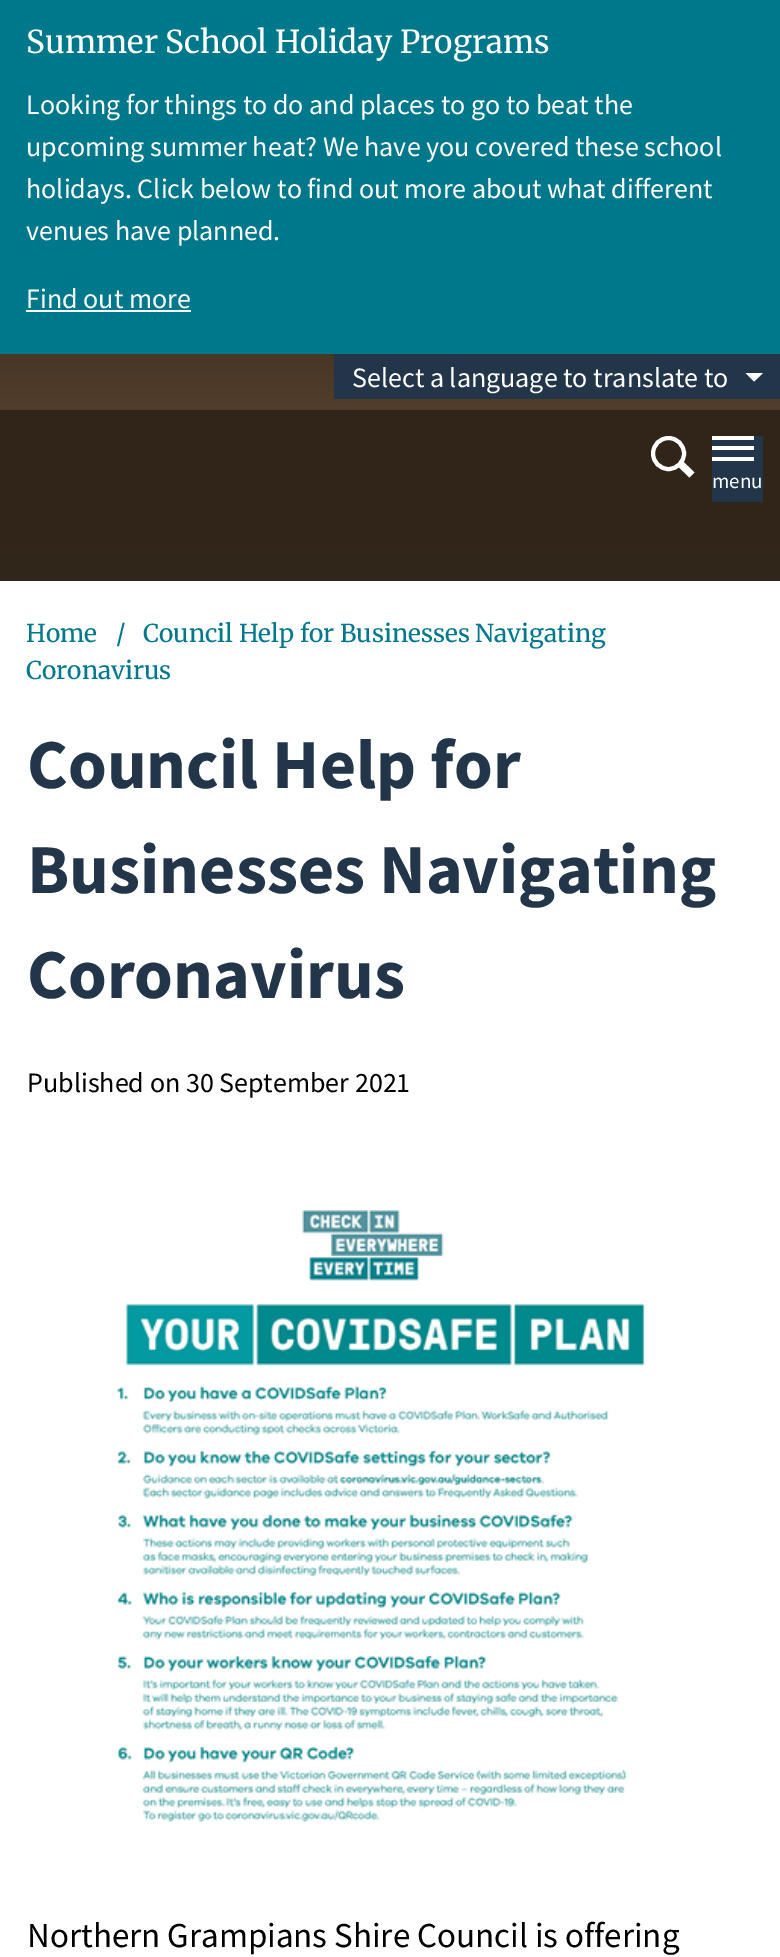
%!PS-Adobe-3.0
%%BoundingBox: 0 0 780 1957
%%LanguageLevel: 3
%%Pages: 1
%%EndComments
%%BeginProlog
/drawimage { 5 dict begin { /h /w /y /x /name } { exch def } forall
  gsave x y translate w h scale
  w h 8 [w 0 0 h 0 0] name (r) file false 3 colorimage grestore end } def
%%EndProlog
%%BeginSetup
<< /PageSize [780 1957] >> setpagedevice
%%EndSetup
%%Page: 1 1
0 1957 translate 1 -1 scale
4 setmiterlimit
0 0.471 0.545 setrgbcolor
0 0 780 1957 rectfill
1 setgray
26 310 165 2 rectfill
gsave newpath 0 354 moveto 780 354 lineto 780 410 lineto 0 410 lineto closepath clip newpath
<< /ShadingType 2 /ColorSpace /DeviceRGB /Coords [390 410 390 235] /Extend [true true] /Function << /FunctionType 2 /Domain [0 1] /C0 [0.322 0.243 0.173] /C1 [0.192 0.145 0.102] /N 1 >> >> shfill grestore
0.192 0.145 0.102 setrgbcolor
0 410 780 136 rectfill
0.137 0.208 0.286 setrgbcolor
334 354 446 45 rectfill
1 setgray
newpath 745.5 373 moveto 763 373 lineto 754 381.5 lineto closepath fill
4 setlinewidth
newpath 668.5 453.5 15.5 0 360 arc closepath stroke
newpath 682 460.5 moveto 694.5 472.5 lineto 689.5 477.5 lineto 677 465.5 lineto closepath fill
0.137 0.208 0.286 setrgbcolor
712 436 51 66 rectfill
1 setgray
712 446 42 4 rectfill
712 436 42 4 rectfill
712 457 42 4 rectfill
gsave newpath 0 546 moveto 780 546 lineto 780 581 lineto 0 581 lineto closepath clip newpath
<< /ShadingType 2 /ColorSpace /DeviceRGB /Coords [390 546 390 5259] /Extend [true true] /Function << /FunctionType 3 /Domain [0 1] /Functions [<< /FunctionType 2 /Domain [0 1] /C0 [0.188 0.149 0.102] /C1 [0.318 0.247 0.173] /N 1 >> << /FunctionType 2 /Domain [0 1] /C0 [0.318 0.247 0.173] /C1 [0.318 0.247 0.173] /N 1 >>] /Bounds [0.2] /Encode [0 1 0 1] >> >> shfill grestore
0 581 780 1376 rectfill
(images/1.raw) 117 1210 529 612 drawimage
/Merriweather-Regular [31.5 0 0 -31.5 0 0] selectfont
26 53 moveto (Summer School Holiday Programs) show
/SourceSansPro-Regular [28 0 0 -28 0 0] selectfont
26 114 moveto (Looking for things to do and places to go to beat the) show
26 156 moveto (upcoming summer heat? We have you covered these school) show
26 198 moveto (holidays. Click below to find out more about what different) show
26 240 moveto (venues have planned.) show
26 308 moveto (Find out more) show
352 387 moveto (Select a language to translate to) show
/SourceSansPro-Regular [21 0 0 -21 0 0] selectfont
712 488 moveto (menu) show
/Merriweather-Regular [24.5 0 0 -24.5 0 0] selectfont
0 0.471 0.545 setrgbcolor
26 642 moveto (Home) show
116 642 moveto (/) show
143 642 moveto (Council Help for Businesses Navigating) show
26 679 moveto (Coronavirus) show
/SourceSansPro-Bold [70 0 0 -70 0 0] selectfont
0.137 0.208 0.286 setrgbcolor
27 788 moveto (Council Help for) show
27 893 moveto (Businesses Navigating) show
27 998 moveto (Coronavirus) show
/SourceSansPro-Regular [28 0 0 -28 0 0] selectfont
0 setgray
27 1092 moveto (Published on 30 September 2021) show
/SourceSansPro-Regular [35 0 0 -35 0 0] selectfont
27 1947 moveto (Northern Grampians Shire Council is offering) show
showpage
%%EOF
